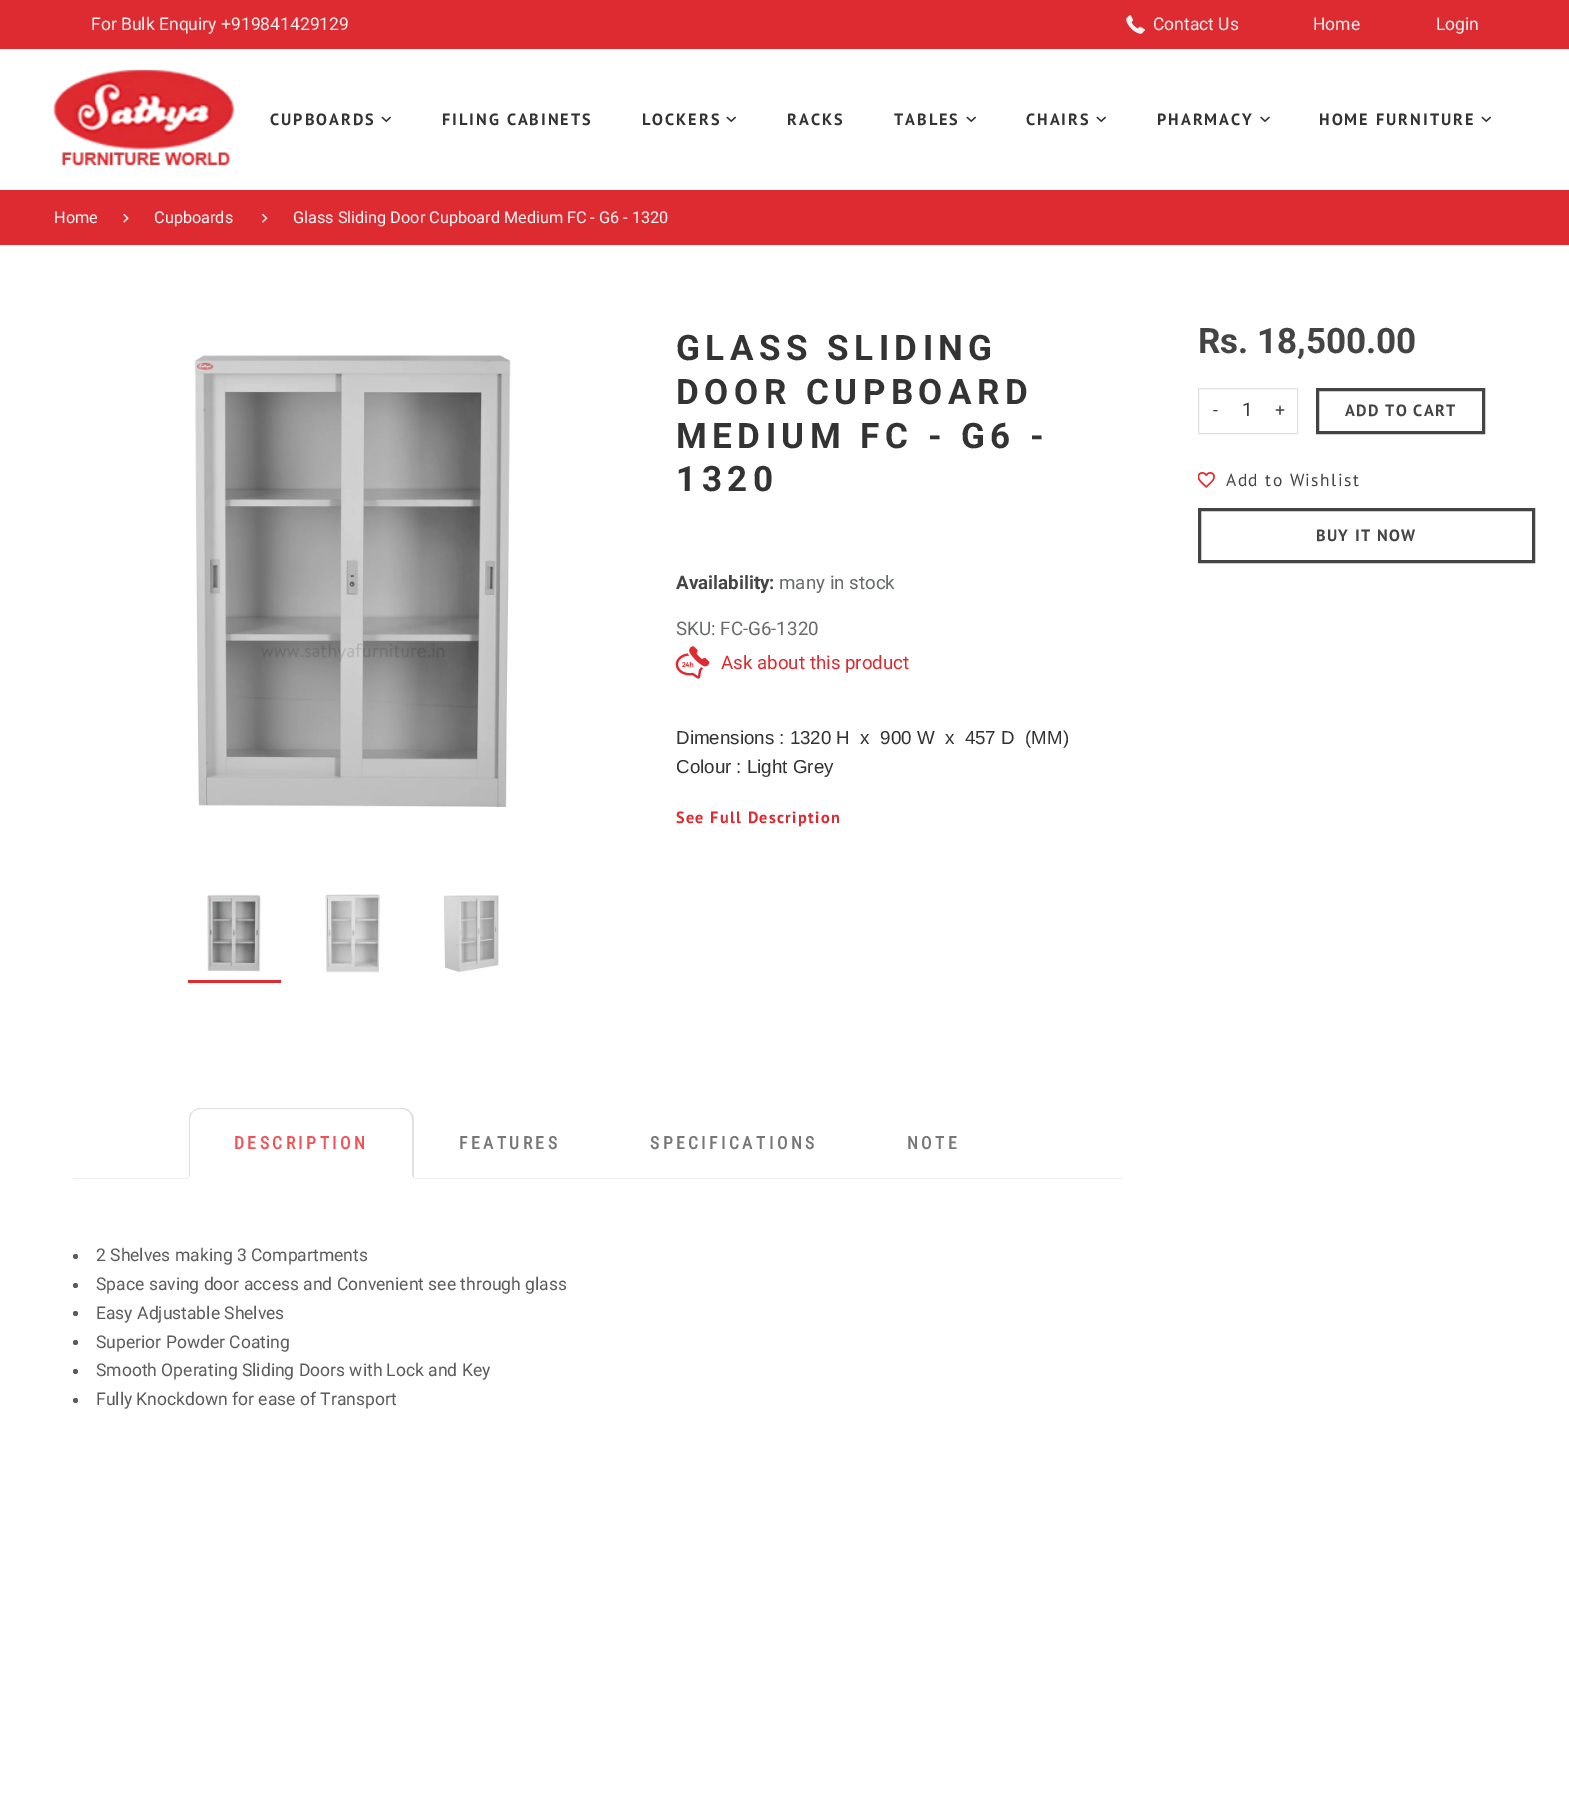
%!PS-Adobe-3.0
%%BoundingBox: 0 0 1569 1810
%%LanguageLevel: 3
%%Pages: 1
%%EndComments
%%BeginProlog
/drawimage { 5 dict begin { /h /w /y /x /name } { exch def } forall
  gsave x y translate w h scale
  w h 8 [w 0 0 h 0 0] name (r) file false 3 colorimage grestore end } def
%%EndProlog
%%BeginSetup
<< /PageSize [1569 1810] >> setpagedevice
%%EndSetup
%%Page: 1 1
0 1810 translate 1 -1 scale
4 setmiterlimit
1 setgray
0 0 1569 1810 rectfill
0.871 0.169 0.192 setrgbcolor
0 0 1569 49 rectfill
(images/1.raw) 1126 15 19 19 drawimage
(images/2.raw) 53 69 182 97 drawimage
(images/3.raw) 381 116 10 7 drawimage
(images/3.raw) 726 116 10 7 drawimage
(images/3.raw) 966 116 10 7 drawimage
(images/3.raw) 1096 116 10 7 drawimage
(images/4.raw) 1260 116 10 7 drawimage
(images/3.raw) 1481 116 10 7 drawimage
0 190 1569 55 rectfill
(images/5.raw) 123 214 6 9 drawimage
(images/6.raw) 262 214 6 9 drawimage
(images/7.raw) 194 355 317 452 drawimage
188 980 93 3 rectfill
(images/8.raw) 207 894 54 78 drawimage
(images/9.raw) 325 894 55 79 drawimage
(images/10.raw) 443 895 56 78 drawimage
(images/11.raw) 675 646 35 33 drawimage
0.937 setgray
73 1178 1050 1 rectfill
1 setgray
newpath 202 1108 moveto 401 1108 lineto 408 1108 414 1114 414 1121 curveto 414 1179 lineto 189 1179 lineto 189 1121 lineto 189 1114 195 1108 202 1108 curveto closepath fill
0.878 setgray
newpath 201 1108 moveto 198 1108 195 1109 193 1111 curveto 193 1112 lineto 195 1110 198 1109 201 1109 curveto 401 1109 lineto 404 1109 407 1110 409 1112 curveto 410 1111 lineto 408 1109 404 1108 401 1108 curveto closepath fill
newpath 410 1111 moveto 412 1113 413 1115 414 1118 curveto 414 1179 lineto 412 1175 lineto 412 1120 lineto 412 1117 411 1114 409 1112 curveto closepath fill
newpath 193 1111 moveto 190 1113 189 1116 189 1120 curveto 189 1178 lineto 190 1176 lineto 190 1120 lineto 190 1117 191 1114 193 1112 curveto closepath fill
0.361 setgray
newpath 75.5 1256.5 2.5 0 360 arc closepath fill
newpath 75.5 1285.5 2.5 0 360 arc closepath fill
newpath 75.5 1313.5 2.5 0 360 arc closepath fill
newpath 75.5 1342.5 2.5 0 360 arc closepath fill
newpath 75.5 1371.5 2.5 0 360 arc closepath fill
newpath 75.5 1400.5 2.5 0 360 arc closepath fill
0.878 setgray
1198.5 388.5 99 45 rectstroke
0.267 setgray
3 setlinewidth
1317.5 389.5 166 43 rectstroke
(images/12.raw) 1198 472 17 16 drawimage
1199.5 509.5 334 52 rectstroke
/Roboto-Regular [17.5 0 0 -17.5 0 0] selectfont
0.945 setgray
91 30 moveto (For Bulk Enquiry +919841429129) show
1153 30 moveto (Contact Us) show
1313 30 moveto (Home) show
1436 30 moveto (Login) show
/PTSans-Bold [16.25 0 0 -16.25 0 0] selectfont
0.2 setgray
270 125 moveto 2 0 (CUPBOARDS) ashow
442 125 moveto 2 0 (FILING CABINETS) ashow
642 125 moveto 2 0 (LOCKERS) ashow
787 125 moveto 2 0 (RACKS) ashow
894 125 moveto 2 0 (TABLES) ashow
1026 125 moveto 2 0 (CHAIRS) ashow
1157 125 moveto 2 0 (PHARMACY) ashow
1319 125 moveto 2 0 (HOME FURNITURE) ashow
/Roboto-Regular [16.25 0 0 -16.25 0 0] selectfont
1 0.988 0.988 setrgbcolor
54 223 moveto (Home) show
154 223 moveto (Cupboards) show
293 223 moveto (Glass Sliding Door Cupboard Medium FC - G6 - 1320) show
/Roboto-Bold [35 0 0 -35 0 0] selectfont
0.2 setgray
676 360 moveto 5.5 0 (GLASS SLIDING) ashow
676 404 moveto 5.5 0 (DOOR CUPBOARD) ashow
676 448 moveto 5.5 0 (MEDIUM FC - G6 -) ashow
676 491 moveto 5.5 0 (1320) ashow
/Roboto-Bold [18.75 0 0 -18.75 0 0] selectfont
0.267 setgray
676 589 moveto (Availability:) show
/Roboto-Regular [18.75 0 0 -18.75 0 0] selectfont
0.408 0.42 0.416 setrgbcolor
779 589 moveto (many in stock) show
676 635 moveto (SKU: FC-G6-1320) show
0.871 0.169 0.192 setrgbcolor
721 669 moveto (Ask about this product) show
/LiberationSans-Regular [18.75 0 0 -18.75 0 0] selectfont
0.2 setgray
676 744 moveto (Dimensions : 1320 H  x  900 W  x  457 D  \(MM\)) show
676 773 moveto (Colour : Light Grey) show
/PTSans-Bold [16.25 0 0 -16.25 0 0] selectfont
0.871 0.169 0.192 setrgbcolor
676 823 moveto 1.3 0 (See Full Description) ashow
/RobotoCondensed-Bold [17.5 0 0 -17.5 0 0] selectfont
0.945 0.318 0.341 setrgbcolor
234 1149 moveto 3.5 0 (DESCRIPTION) ashow
0.467 setgray
459 1149 moveto 3.5 0 (FEATURES) ashow
650 1149 moveto 3.5 0 (SPECIFICATIONS) ashow
907 1149 moveto 3.5 0 (NOTE) ashow
/Roboto-Regular [17.5 0 0 -17.5 0 0] selectfont
0.361 setgray
96 1261 moveto (2 Shelves making 3 Compartments) show
96 1290 moveto (Space saving door access and Convenient see through glass) show
96 1319 moveto (Easy Adjustable Shelves) show
96 1348 moveto (Superior Powder Coating) show
96 1376 moveto (Smooth Operating Sliding Doors with Lock and Key) show
96 1405 moveto (Fully Knockdown for ease of Transport) show
/Roboto-Bold [35 0 0 -35 0 0] selectfont
0.267 setgray
1198 353 moveto (Rs. 18,500.00) show
/Roboto-Regular [17.5 0 0 -17.5 0 0] selectfont
0.235 setgray
1213 416 moveto (-) show
/Roboto-Regular [18.75 0 0 -18.75 0 0] selectfont
1242 416 moveto (1) show
/Roboto-Regular [17.5 0 0 -17.5 0 0] selectfont
1275 416 moveto (+) show
/PTSans-Bold [16.25 0 0 -16.25 0 0] selectfont
0.267 setgray
1345 416 moveto 1.3 0 (ADD TO CART) ashow
/PTSans-Regular [17.5 0 0 -17.5 0 0] selectfont
1226 486 moveto 1.4 0 (Add to Wishlist) ashow
/PTSans-Bold [16.25 0 0 -16.25 0 0] selectfont
1316 541 moveto 1.3 0 (BUY IT NOW) ashow
showpage
%%EOF
